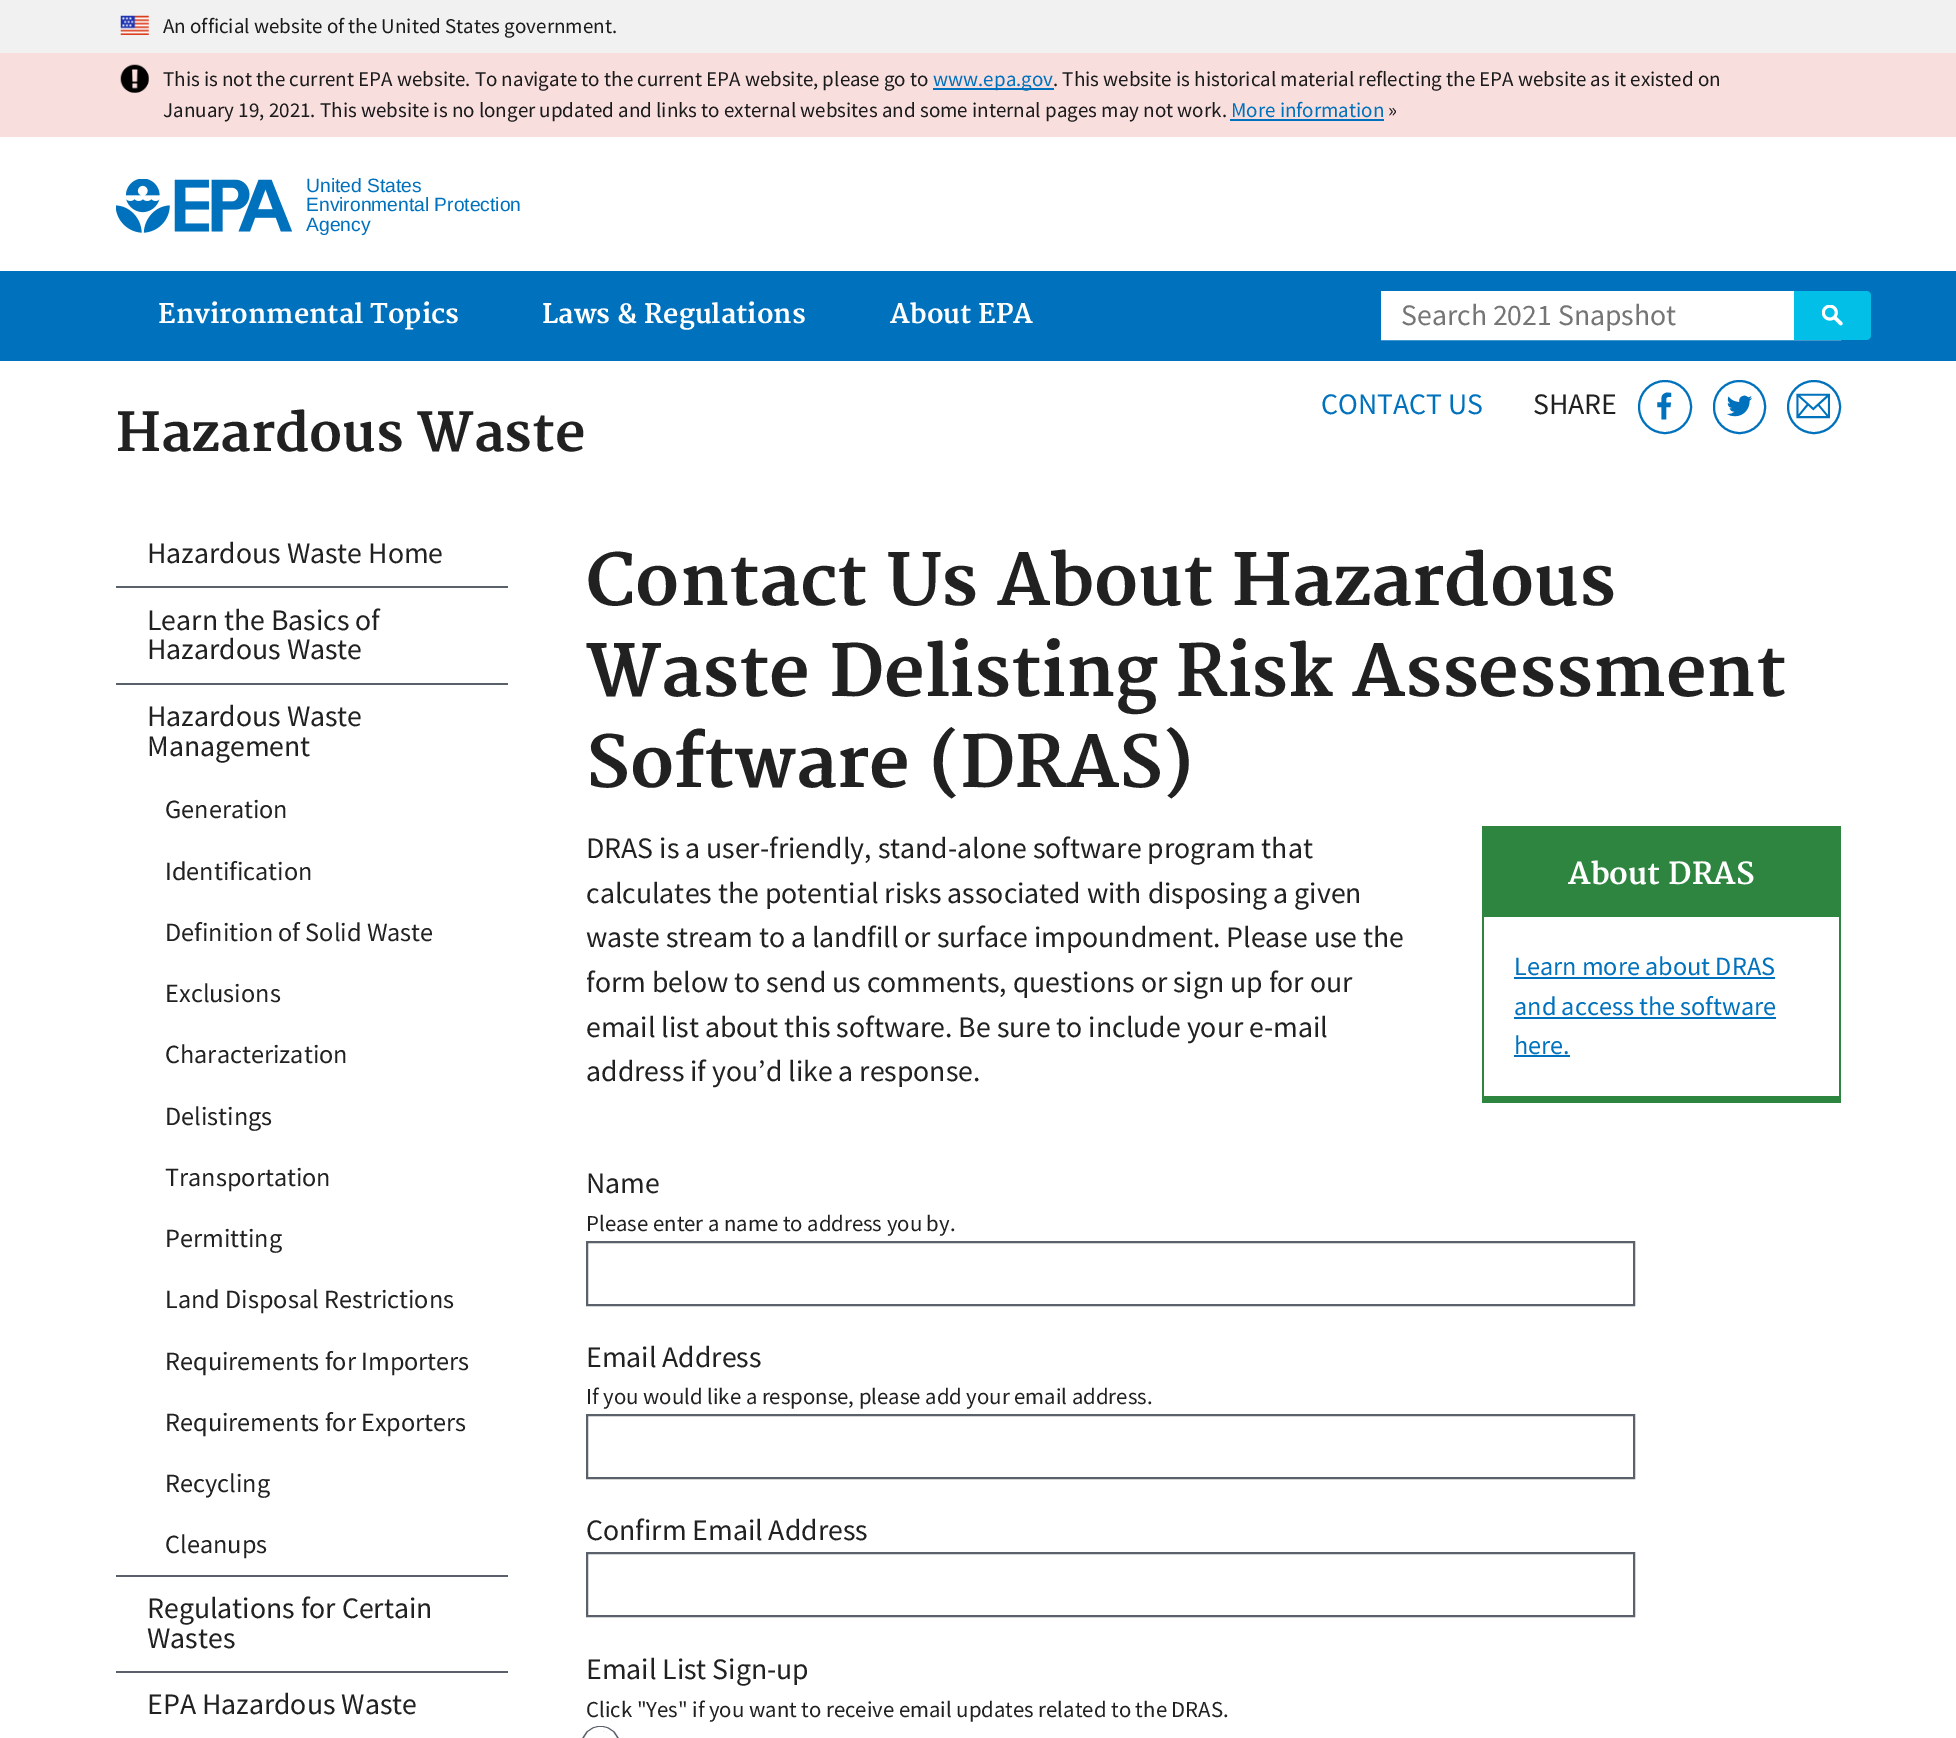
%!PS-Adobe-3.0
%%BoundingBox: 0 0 1956 1738
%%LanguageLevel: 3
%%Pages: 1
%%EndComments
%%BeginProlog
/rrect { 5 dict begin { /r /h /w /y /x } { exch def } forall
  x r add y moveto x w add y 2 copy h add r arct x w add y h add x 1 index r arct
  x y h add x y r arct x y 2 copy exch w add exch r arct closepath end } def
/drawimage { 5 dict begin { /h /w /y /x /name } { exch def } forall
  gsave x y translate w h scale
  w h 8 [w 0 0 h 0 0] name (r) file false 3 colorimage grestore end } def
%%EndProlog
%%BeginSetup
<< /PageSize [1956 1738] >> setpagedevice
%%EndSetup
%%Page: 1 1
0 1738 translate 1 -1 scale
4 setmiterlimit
1 setgray
0 0 1956 1738 rectfill
0.945 setgray
0 0 1956 53 rectfill
(images/1.raw) 120 15 29 20 drawimage
0.976 0.871 0.871 setrgbcolor
0 53 1956 84 rectfill
(images/2.raw) 120 64 29 29 drawimage
0 0.443 0.737 setrgbcolor
933 88 121 2 rectfill
1230 119 154 2 rectfill
(images/3.raw) 116 179 176 54 drawimage
0 271 1956 90 rectfill
1 setgray
1383 293 411 45 rectfill
2 setlinewidth
1382 292 458 47 rectstroke
0.008 0.749 0.906 setrgbcolor
newpath 1794 291 moveto 1866 291 lineto 1869 291 1871 293 1871 296 curveto 1871 335 lineto 1871 338 1869 340 1866 340 curveto 1794 340 lineto closepath fill
(images/4.raw) 1822 305 21 21 drawimage
0 0.443 0.737 setrgbcolor
newpath 1665 407 26 0 360 arc closepath stroke
(images/5.raw) 1657 392 15 28 drawimage
1714 381 51 52 25.5 rrect stroke
(images/6.raw) 1727 395 26 22 drawimage
newpath 1814 407 26 0 360 arc closepath stroke
(images/7.raw) 1796 393 34 26 drawimage
0.357 0.38 0.42 setrgbcolor
116 586 392 2 rectfill
116 683 392 2 rectfill
116 1575 392 2 rectfill
116 1671 392 2 rectfill
0.18 0.522 0.251 setrgbcolor
1482 826 359 91 rectfill
1839 917 2 186 rectfill
1482 1096 359 7 rectfill
1482 917 2 186 rectfill
0 0.443 0.737 setrgbcolor
1514 977 261 2 rectfill
1514 1017 262 2 rectfill
1514 1055 56 2 rectfill
0.357 0.38 0.42 setrgbcolor
587 1242 1047 63 rectstroke
587 1415 1047 63 rectstroke
587 1553 1047 63 rectstroke
5 setlinewidth
583.5 1728.5 34 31 16.5 rrect stroke
1 setgray
4 setlinewidth
585 1729 31 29 15.5 rrect stroke
586 1731 28 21 14 rrect fill
/SourceSansPro-Regular [21 0 0 -21 0 0] selectfont
0.106 setgray
163 33 moveto (An official website of the United States government.) show
163 86 moveto (This is not the current EPA website. To navigate to the current EPA website, please go to) show
0 0.443 0.737 setrgbcolor
933 86 moveto (www.epa.gov) show
0.106 setgray
1053 86 moveto (. This website is historical material reflecting the EPA website as it existed on) show
163 117 moveto (January 19, 2021. This website is no longer updated and links to external websites and some internal pages may not work.) show
0 0.443 0.737 setrgbcolor
1231 117 moveto (More information) show
0.106 setgray
1388 117 moveto (») show
/LiberationSans-Regular [19.25 0 0 -19.25 0 0] selectfont
0 0.443 0.737 setrgbcolor
306 192 moveto (United States) show
306 211 moveto (Environmental Protection) show
306 231 moveto (Agency) show
/SourceSansPro-Regular [29.75 0 0 -29.75 0 0] selectfont
0.459 setgray
1401 325 moveto (Search 2021 Snapshot) show
/Merriweather-Bold [26.25 0 0 -26.25 0 0] selectfont
1 setgray
158 323 moveto (Environmental Topics) show
542 323 moveto (Laws & Regulations) show
890 323 moveto (About EPA) show
/SourceSansPro-Regular [29.75 0 0 -29.75 0 0] selectfont
0 0.443 0.737 setrgbcolor
1321 414 moveto (CONTACT US) show
0.129 setgray
1533 414 moveto (SHARE) show
/Merriweather-Bold [52.5 0 0 -52.5 0 0] selectfont
116 451 moveto (Hazardous Waste) show
/SourceSansPro-Regular [29.75 0 0 -29.75 0 0] selectfont
147 563 moveto (Hazardous Waste Home) show
147 630 moveto (Learn the Basics of) show
147 659 moveto (Hazardous Waste) show
147 726 moveto (Hazardous Waste) show
147 756 moveto (Management) show
/SourceSansPro-Regular [26.25 0 0 -26.25 0 0] selectfont
165 818 moveto (Generation) show
165 880 moveto (Identification) show
165 941 moveto (Definition of Solid Waste) show
165 1002 moveto (Exclusions) show
165 1063 moveto (Characterization) show
165 1125 moveto (Delistings) show
165 1186 moveto (Transportation) show
165 1247 moveto (Permitting) show
165 1308 moveto (Land Disposal Restrictions) show
165 1370 moveto (Requirements for Importers) show
165 1431 moveto (Requirements for Exporters) show
165 1492 moveto (Recycling) show
165 1553 moveto (Cleanups) show
/SourceSansPro-Regular [29.75 0 0 -29.75 0 0] selectfont
147 1618 moveto (Regulations for Certain) show
147 1648 moveto (Wastes) show
147 1714 moveto (EPA Hazardous Waste) show
/Merriweather-Bold [70 0 0 -70 0 0] selectfont
586 605 moveto (Contact Us About Hazardous) show
586 696 moveto (Waste Delisting Risk Assessment) show
586 787 moveto (Software \(DRAS\)) show
/SourceSansPro-Regular [29.75 0 0 -29.75 0 0] selectfont
586 858 moveto (DRAS is a user-friendly, stand-alone software program that) show
586 903 moveto (calculates the potential risks associated with disposing a given) show
586 947 moveto (waste stream to a landfill or surface impoundment. Please use the) show
586 992 moveto (form below to send us comments, questions or sign up for our) show
586 1037 moveto (email list about this software. Be sure to include your e-mail) show
586 1081 moveto (address if you’d like a response.) show
/Merriweather-Bold [29.75 0 0 -29.75 0 0] selectfont
1 setgray
1568 884 moveto (About DRAS) show
/SourceSansPro-Regular [26.25 0 0 -26.25 0 0] selectfont
0 0.443 0.737 setrgbcolor
1514 975 moveto (Learn more about DRAS) show
1514 1015 moveto (and access the software) show
1514 1054 moveto (here.) show
/SourceSansPro-Regular [29.75 0 0 -29.75 0 0] selectfont
0.129 setgray
586 1193 moveto (Name) show
/SourceSansPro-Regular [22.75 0 0 -22.75 0 0] selectfont
586 1231 moveto (Please enter a name to address you by.) show
/SourceSansPro-Regular [29.75 0 0 -29.75 0 0] selectfont
586 1367 moveto (Email Address) show
/SourceSansPro-Regular [22.75 0 0 -22.75 0 0] selectfont
586 1404 moveto (If you would like a response, please add your email address.) show
/SourceSansPro-Regular [29.75 0 0 -29.75 0 0] selectfont
586 1540 moveto (Confirm Email Address) show
586 1679 moveto (Email List Sign-up) show
/SourceSansPro-Regular [22.75 0 0 -22.75 0 0] selectfont
586 1717 moveto (Click "Yes" if you want to receive email updates related to the DRAS.) show
showpage
%%EOF
